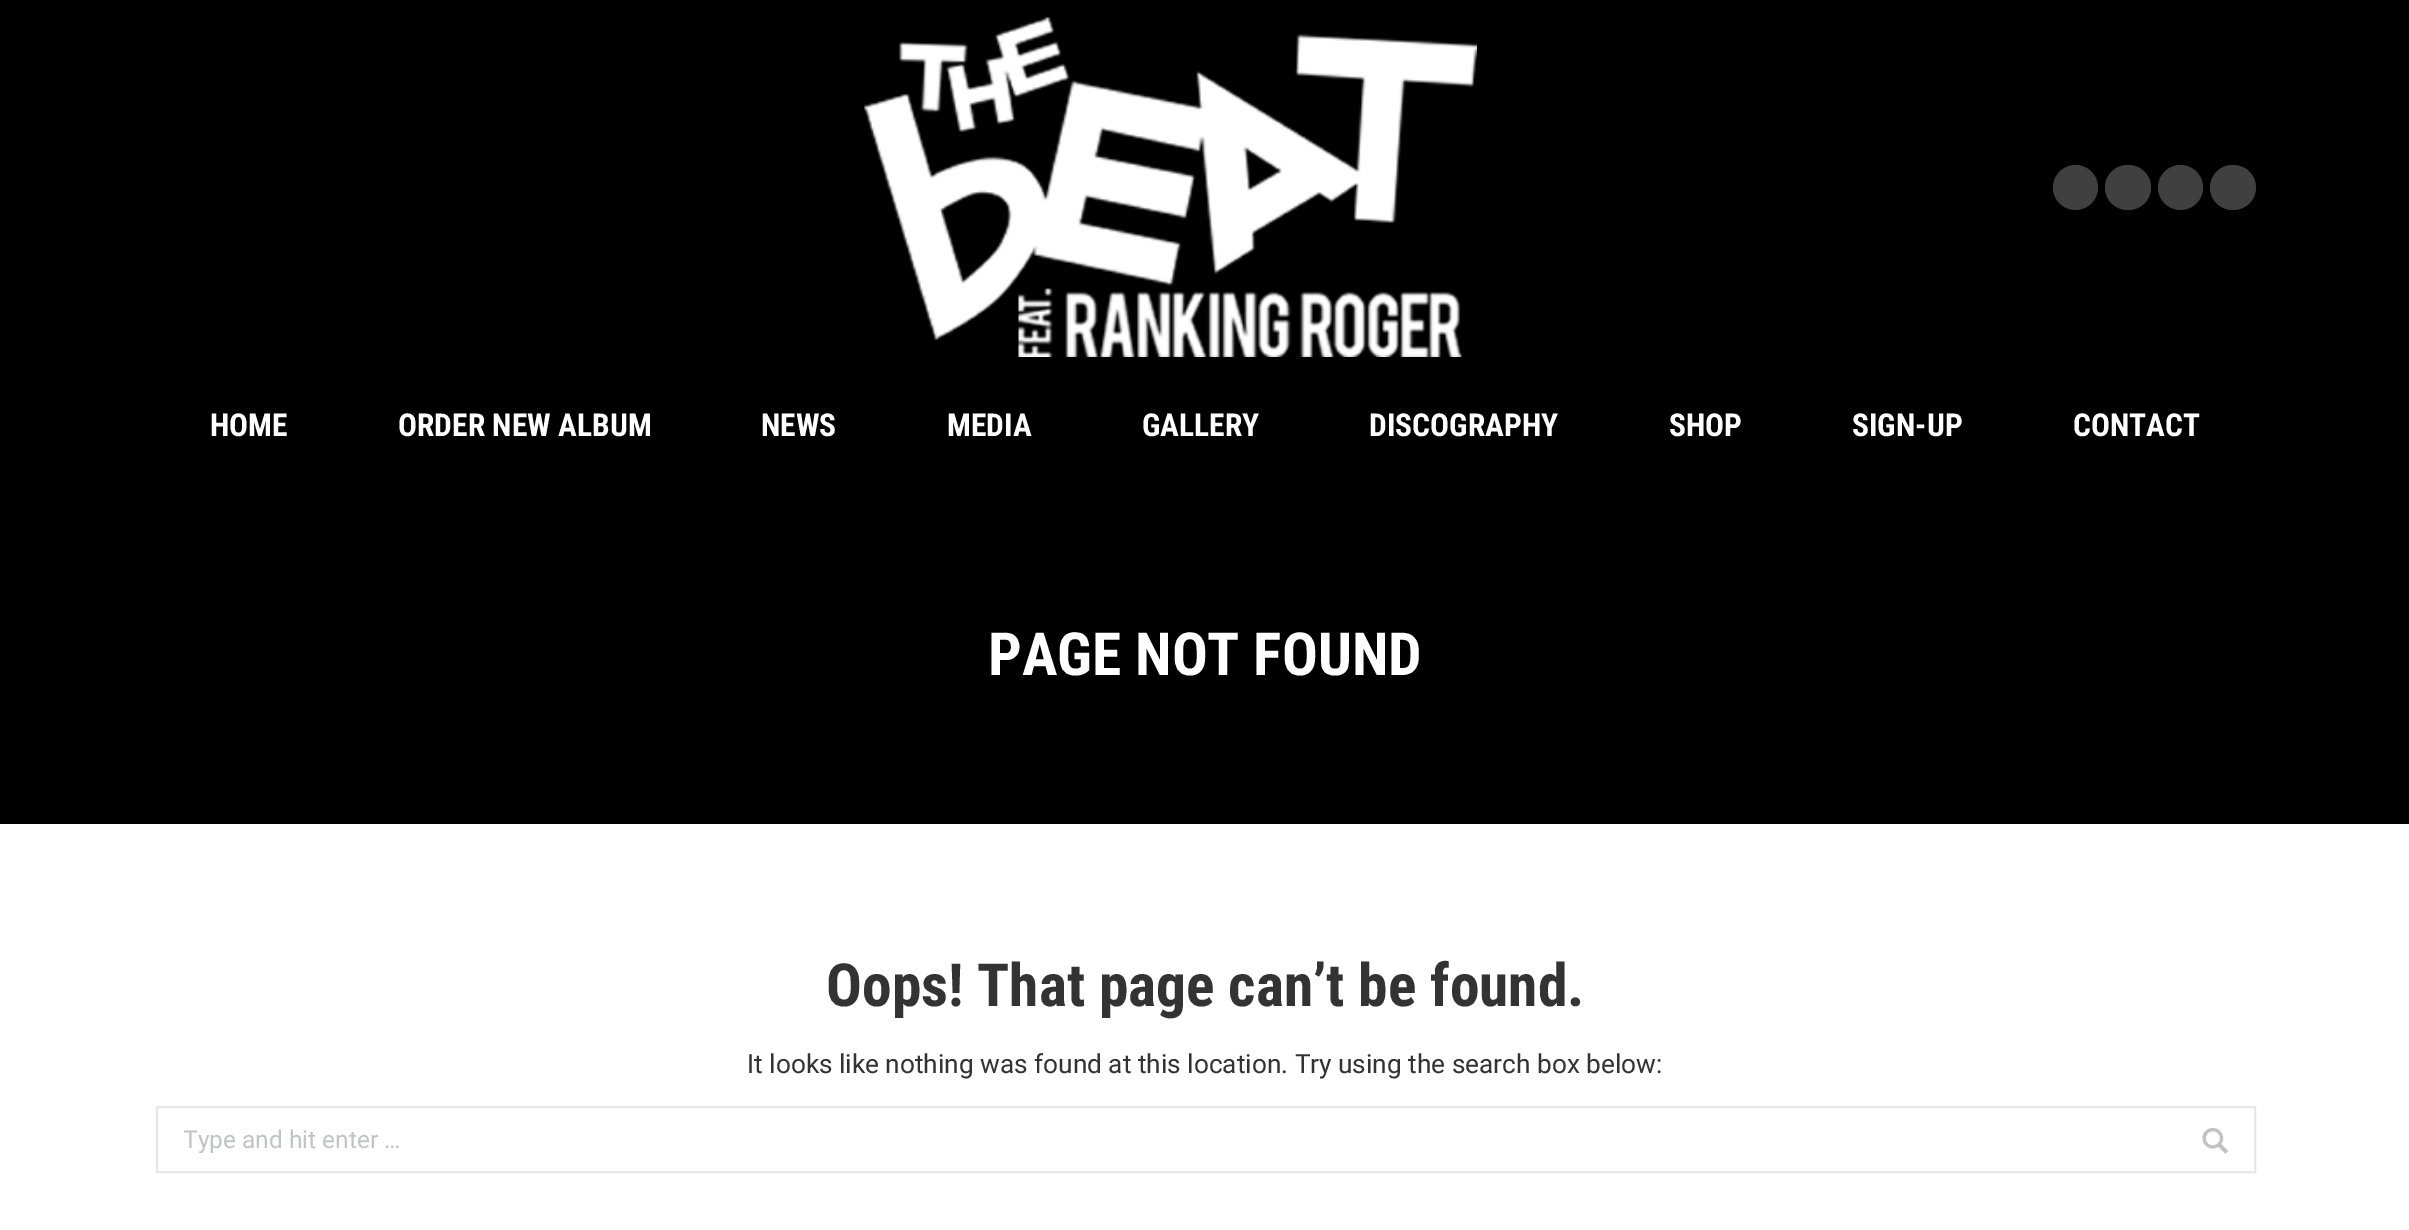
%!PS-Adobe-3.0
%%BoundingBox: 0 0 2409 1230
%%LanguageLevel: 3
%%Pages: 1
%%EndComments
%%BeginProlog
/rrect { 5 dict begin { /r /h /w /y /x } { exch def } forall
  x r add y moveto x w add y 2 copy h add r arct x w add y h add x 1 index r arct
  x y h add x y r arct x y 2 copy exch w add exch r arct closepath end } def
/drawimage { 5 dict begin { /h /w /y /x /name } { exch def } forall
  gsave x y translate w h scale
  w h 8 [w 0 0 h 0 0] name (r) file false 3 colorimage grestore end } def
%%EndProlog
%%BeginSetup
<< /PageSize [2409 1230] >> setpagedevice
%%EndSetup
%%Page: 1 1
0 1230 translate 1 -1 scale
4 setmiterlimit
1 setgray
0 0 2409 1230 rectfill
0 setgray
0 0 2409 824 rectfill
(images/1.raw) 864 17 613 340 drawimage
0.251 setgray
newpath 2075.5 187.5 22.5 0 360 arc closepath fill
2105 165 46 45 22.5 rrect fill
newpath 2180.5 187.5 22.5 0 360 arc closepath fill
2210 165 46 45 22.5 rrect fill
0.906 setgray
2 setlinewidth
157 1107 2098 65 rectstroke
(images/2.raw) 2202 1127 27 27 drawimage
/RobotoCondensed-Bold [31.5 0 0 -31.5 0 0] selectfont
1 setgray
210 436 moveto (HOME) show
398 436 moveto (ORDER NEW ALBUM) show
761 436 moveto (NEWS) show
947 436 moveto (MEDIA) show
1142 436 moveto (GALLERY) show
1369 436 moveto (DISCOGRAPHY) show
1669 436 moveto (SHOP) show
1852 436 moveto (SIGN-UP) show
2073 436 moveto (CONTACT) show
/RobotoCondensed-Bold [59.5 0 0 -59.5 0 0] selectfont
988 675 moveto (PAGE NOT FOUND) show
0.2 setgray
826 1006 moveto (Oops! That page can’t be found.) show
/Roboto-Regular [26.25 0 0 -26.25 0 0] selectfont
747 1073 moveto (It looks like nothing was found at this location. Try using the search box below:) show
gsave
184 1125 2018 28 rectclip
/Roboto-Regular [24.5 0 0 -24.5 0 0] selectfont
0.761 0.765 0.776 setrgbcolor
183 1148 moveto (Type and hit enter …) show
grestore
showpage
%%EOF
